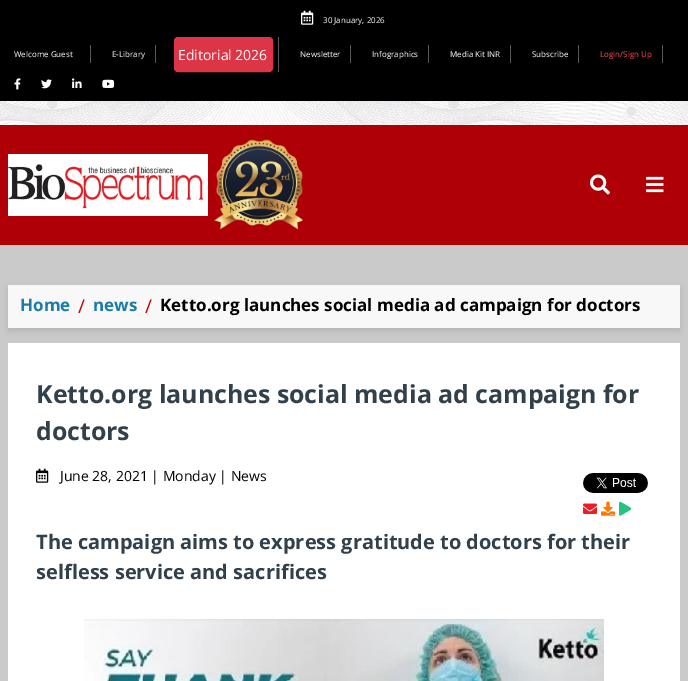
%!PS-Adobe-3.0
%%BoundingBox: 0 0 688 681
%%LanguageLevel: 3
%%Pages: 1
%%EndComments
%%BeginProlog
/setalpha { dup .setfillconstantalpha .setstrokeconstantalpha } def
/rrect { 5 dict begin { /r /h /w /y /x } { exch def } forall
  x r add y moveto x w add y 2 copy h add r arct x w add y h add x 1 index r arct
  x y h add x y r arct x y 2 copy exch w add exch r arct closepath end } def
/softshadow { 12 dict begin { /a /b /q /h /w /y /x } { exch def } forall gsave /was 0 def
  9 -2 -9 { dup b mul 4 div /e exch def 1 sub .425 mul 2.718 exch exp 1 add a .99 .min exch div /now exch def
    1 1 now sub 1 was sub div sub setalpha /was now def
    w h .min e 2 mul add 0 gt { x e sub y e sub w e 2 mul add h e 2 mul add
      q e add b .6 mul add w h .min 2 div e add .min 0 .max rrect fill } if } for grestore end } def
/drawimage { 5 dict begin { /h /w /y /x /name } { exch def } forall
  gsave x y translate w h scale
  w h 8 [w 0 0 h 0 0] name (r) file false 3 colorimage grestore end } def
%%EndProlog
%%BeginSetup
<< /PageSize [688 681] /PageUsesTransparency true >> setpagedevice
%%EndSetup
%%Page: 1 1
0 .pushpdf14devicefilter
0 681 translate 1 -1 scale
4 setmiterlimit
0.792 setgray
0 0 688 681 rectfill
0 setgray
0 0 688 101 rectfill
(images/1.raw) 301 10 13 15 drawimage
0.345 setgray
90 45 1 18 rectfill
155 45 1 18 rectfill
278 37 1 35 rectfill
0.863 0.208 0.271 setrgbcolor
174.5 37.5 98 34 3.5 rrect gsave fill grestore
stroke
0.345 setgray
350 45 1 18 rectfill
428 45 1 18 rectfill
510 45 1 18 rectfill
578 45 1 18 rectfill
662 45 1 18 rectfill
(images/2.raw) 14 78 7 12 drawimage
(images/3.raw) 41 79 11 10 drawimage
(images/4.raw) 72 78 10 10 drawimage
(images/5.raw) 102 79 13 9 drawimage
(images/6.raw) 0 101 688 24 drawimage
0.686 0 0.027 setrgbcolor
0 125 688 120 rectfill
(images/7.raw) 8 154 200 62 drawimage
(images/8.raw) 214 139 89 91 drawimage
(images/9.raw) 590 174 20 21 drawimage
(images/10.raw) 646 176 18 17 drawimage
0 setgray
8 288 672 43 0 3 0.11 softshadow
0.973 setgray
8 285 672 43 rectfill
1 setgray
8 343 672 338 rectfill
(images/11.raw) 36 468 13 15 drawimage
(images/12.raw) 583 473 65 20 drawimage
(images/13.raw) 583 503 14 11 drawimage
(images/14.raw) 601 501 14 15 drawimage
(images/15.raw) 619 501 13 15 drawimage
(images/16.raw) 84 619 520 62 drawimage
/OpenSans-Regular [8 0 0 -8 0 0] selectfont
323 23 moveto (30 January, 2026) show
14 57 moveto (Welcome Guest) show
112 57 moveto (E-Library) show
/OpenSans-Regular [14 0 0 -14 0 0] selectfont
178 60 moveto (Editorial 2026) show
/OpenSans-Regular [8 0 0 -8 0 0] selectfont
300 57 moveto (Newsletter) show
372 57 moveto (Infographics) show
450 57 moveto (Media Kit INR) show
532 57 moveto (Subscribe) show
0.988 0.286 0.314 setrgbcolor
600 57 moveto (Login/Sign Up) show
/OpenSans-Bold [17 0 0 -17 0 0] selectfont
0.102 0.49 0.655 setrgbcolor
20 311 moveto (Home) show
/OpenSans-Regular [19 0 0 -19 0 0] selectfont
0.761 0 0.031 setrgbcolor
78 313 moveto (/) show
/OpenSans-Bold [17 0 0 -17 0 0] selectfont
0.102 0.49 0.655 setrgbcolor
93 311 moveto (news) show
/OpenSans-Regular [19 0 0 -19 0 0] selectfont
0.761 0 0.031 setrgbcolor
145 313 moveto (/) show
/OpenSans-Bold [17 0 0 -17 0 0] selectfont
0 setgray
160 311 moveto (Ketto.org launches social media ad campaign for doctors) show
/OpenSans-Bold [24.9 0 0 -24.9 0 0] selectfont
0.192 0.251 0.294 setrgbcolor
36 403 moveto (Ketto.org launches social media ad campaign for) show
36 440 moveto (doctors) show
/OpenSans-Regular [14 0 0 -14 0 0] selectfont
0 setgray
60 481 moveto (June 28, 2021 | Monday | News) show
/OpenSans-Bold [20 0 0 -20 0 0] selectfont
0.192 0.251 0.294 setrgbcolor
36 549 moveto (The campaign aims to express gratitude to doctors for their) show
36 579 moveto (selfless service and sacrifices) show
.poppdf14devicefilter showpage
%%EOF
